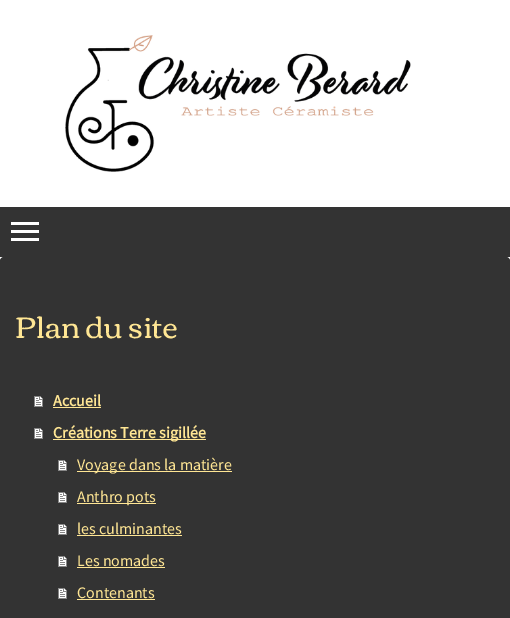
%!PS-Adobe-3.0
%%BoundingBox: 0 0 510 618
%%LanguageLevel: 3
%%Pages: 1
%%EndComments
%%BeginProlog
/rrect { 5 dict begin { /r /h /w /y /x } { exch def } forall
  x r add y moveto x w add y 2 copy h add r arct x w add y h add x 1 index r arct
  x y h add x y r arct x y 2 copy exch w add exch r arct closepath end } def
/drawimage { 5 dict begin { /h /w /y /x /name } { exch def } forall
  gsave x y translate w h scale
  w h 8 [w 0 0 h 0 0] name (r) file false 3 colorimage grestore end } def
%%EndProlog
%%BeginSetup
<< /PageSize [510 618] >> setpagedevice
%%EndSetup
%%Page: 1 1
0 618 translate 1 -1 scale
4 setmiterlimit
1 setgray
0 0 510 618 rectfill
(images/1.raw) 65 35 346 137 drawimage
0.2 setgray
0 207 510 50 rectfill
1 setgray
11 230 28 3 rectfill
11 222 28 3 rectfill
11 238 28 3 rectfill
0.2 setgray
0 257 510 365 4 rrect fill
(images/2.raw) 34 396 9 11 drawimage
1 0.902 0.58 setrgbcolor
53 407 48 1 rectfill
(images/2.raw) 34 428 9 11 drawimage
53 439 153 1 rectfill
(images/2.raw) 58 460 9 11 drawimage
77 471 155 1 rectfill
(images/2.raw) 58 492 9 11 drawimage
77 503 79 1 rectfill
(images/2.raw) 58 524 9 11 drawimage
77 535 105 1 rectfill
(images/2.raw) 58 556 9 11 drawimage
77 567 88 1 rectfill
(images/2.raw) 58 588 9 11 drawimage
77 599 78 1 rectfill
/Corben-Regular [30 0 0 -30 0 0] selectfont
15 338 moveto (Plan du site) show
/SourceSansPro-Bold [16 0 0 -16 0 0] selectfont
53 406 moveto (Accueil) show
53 438 moveto (Créations Terre sigillée) show
/SourceSansPro-Regular [16 0 0 -16 0 0] selectfont
77 470 moveto (Voyage dans la matière) show
77 502 moveto (Anthro pots) show
77 534 moveto (les culminantes) show
77 566 moveto (Les nomades) show
77 598 moveto (Contenants) show
showpage
%%EOF
